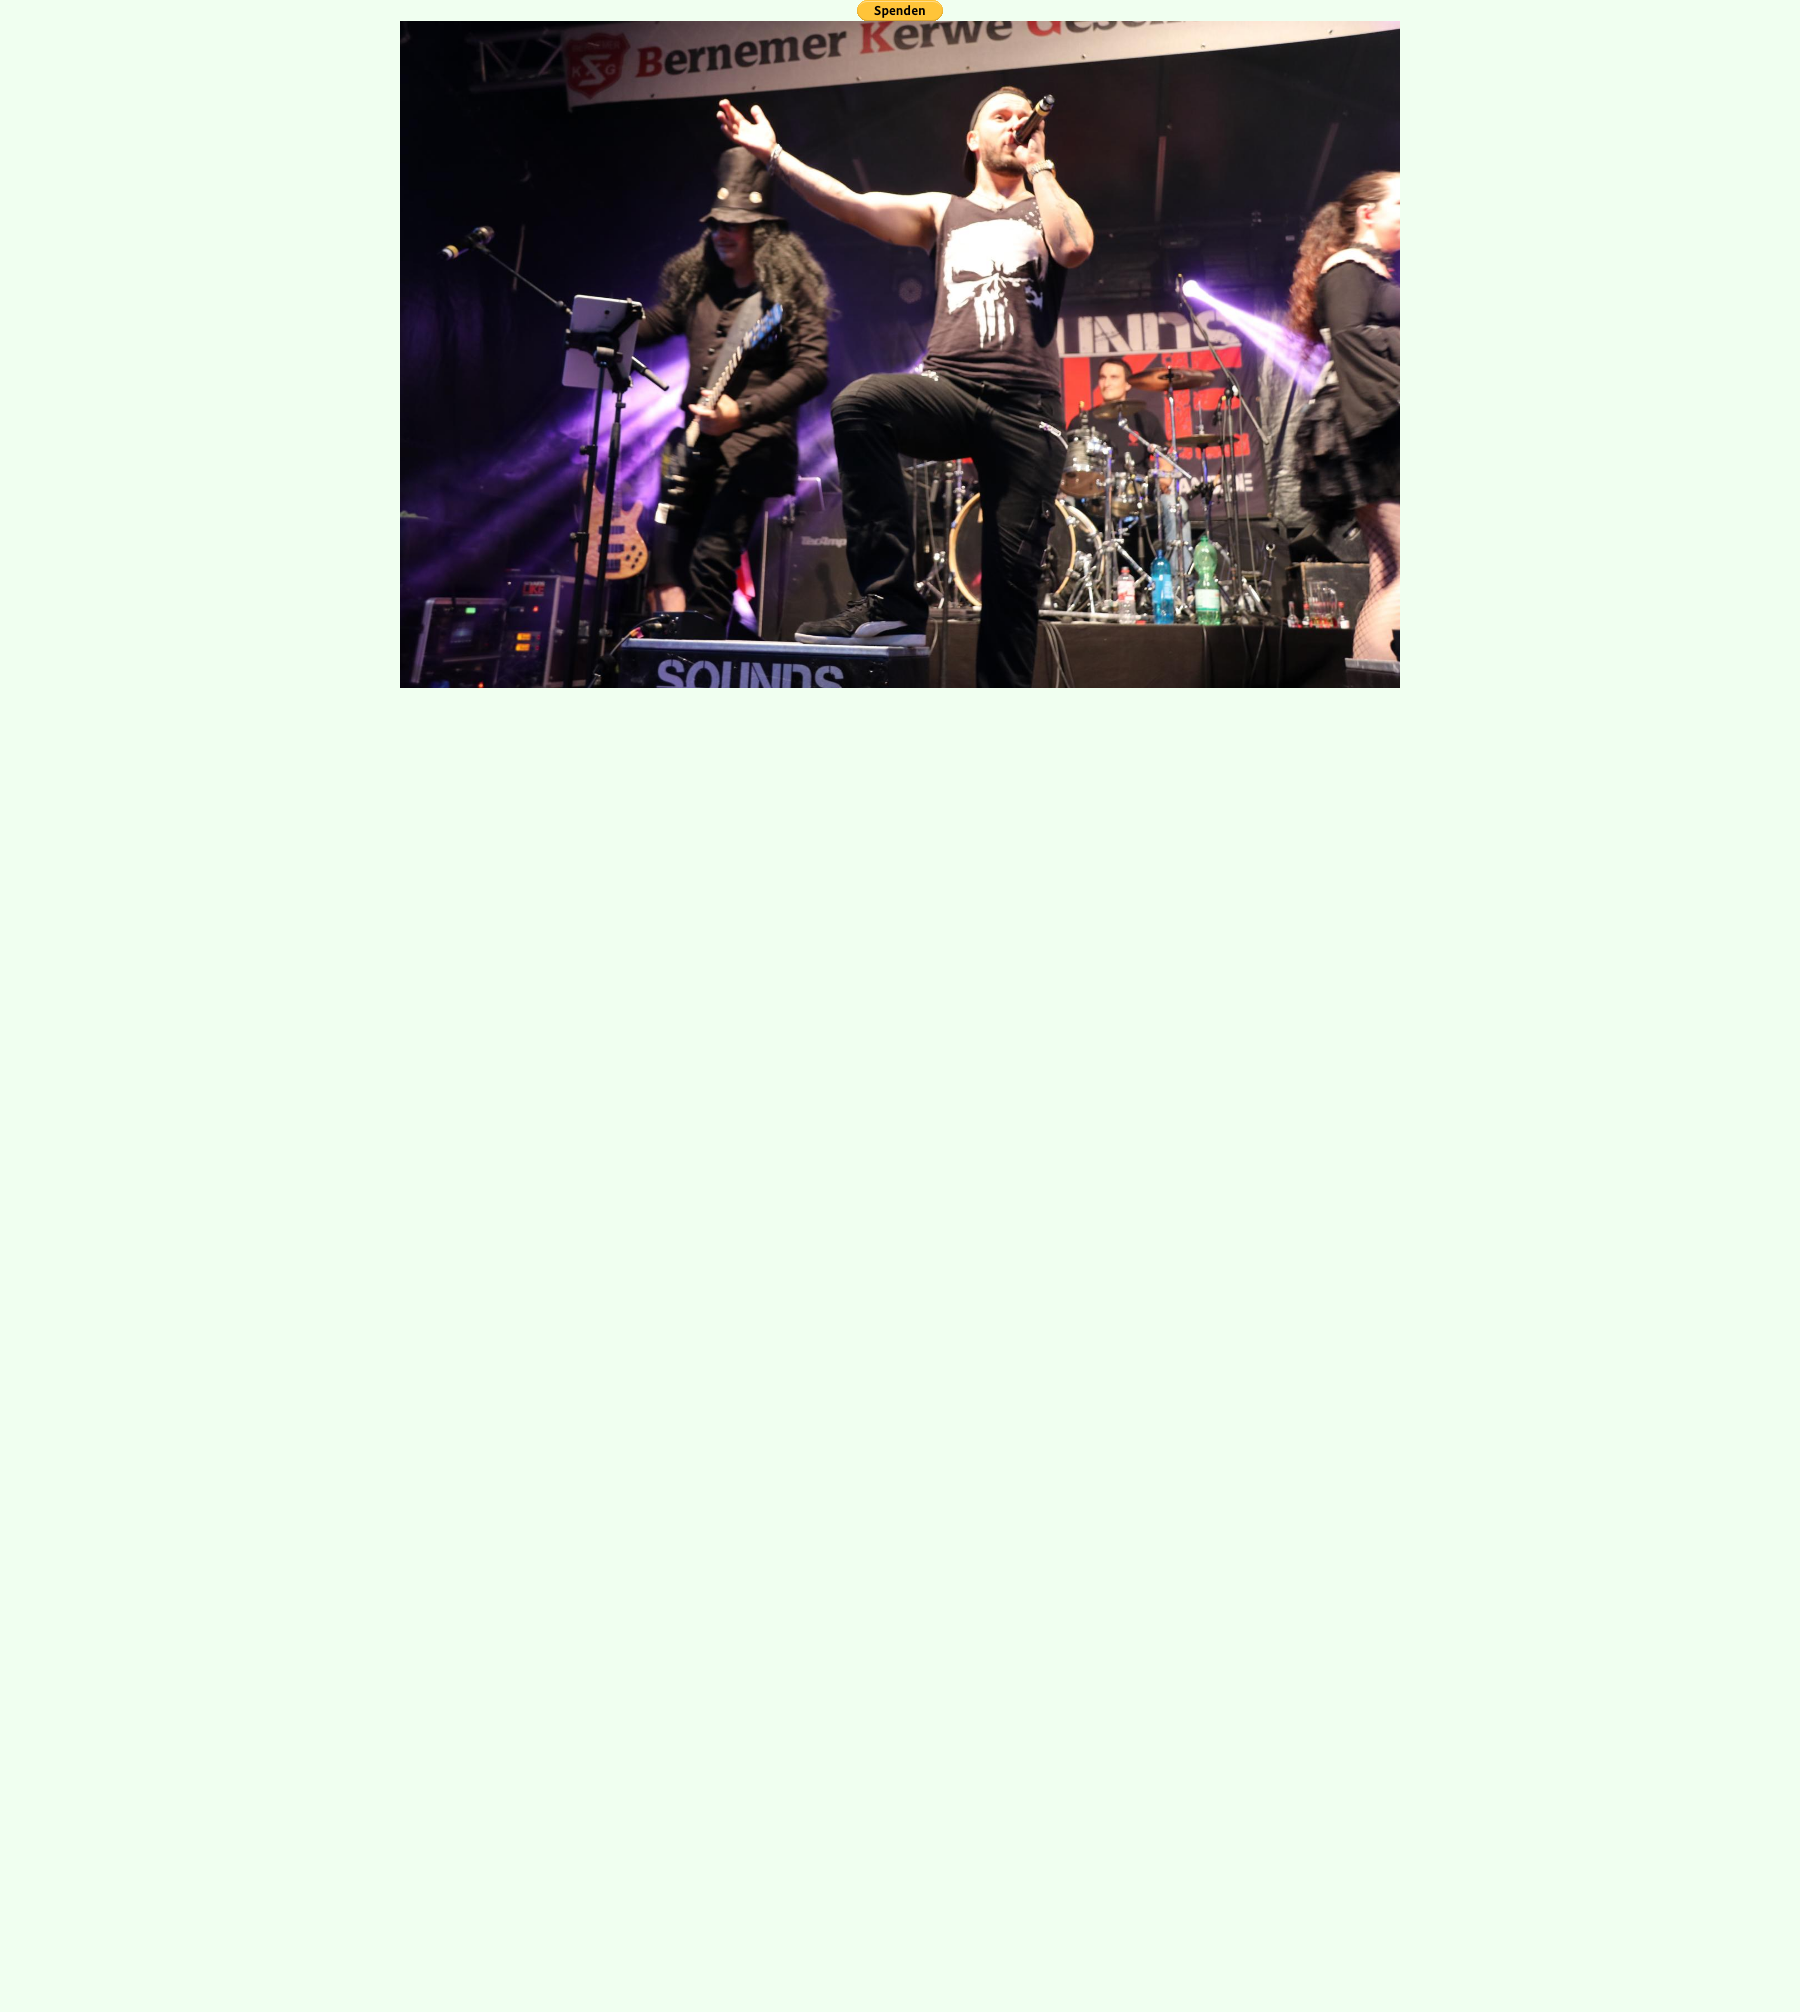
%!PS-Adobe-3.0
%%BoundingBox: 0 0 1800 2012
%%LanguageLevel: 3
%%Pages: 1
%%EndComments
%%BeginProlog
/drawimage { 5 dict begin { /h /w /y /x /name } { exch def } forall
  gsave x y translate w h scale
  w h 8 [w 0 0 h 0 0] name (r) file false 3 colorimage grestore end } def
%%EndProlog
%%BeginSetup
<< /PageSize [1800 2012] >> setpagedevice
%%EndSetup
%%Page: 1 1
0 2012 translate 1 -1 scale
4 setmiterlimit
0.941 1 0.941 setrgbcolor
0 0 1800 2012 rectfill
(images/1.raw) 857 0 86 21 drawimage
(images/2.raw) 400 21 1000 667 drawimage
showpage
%%EOF
